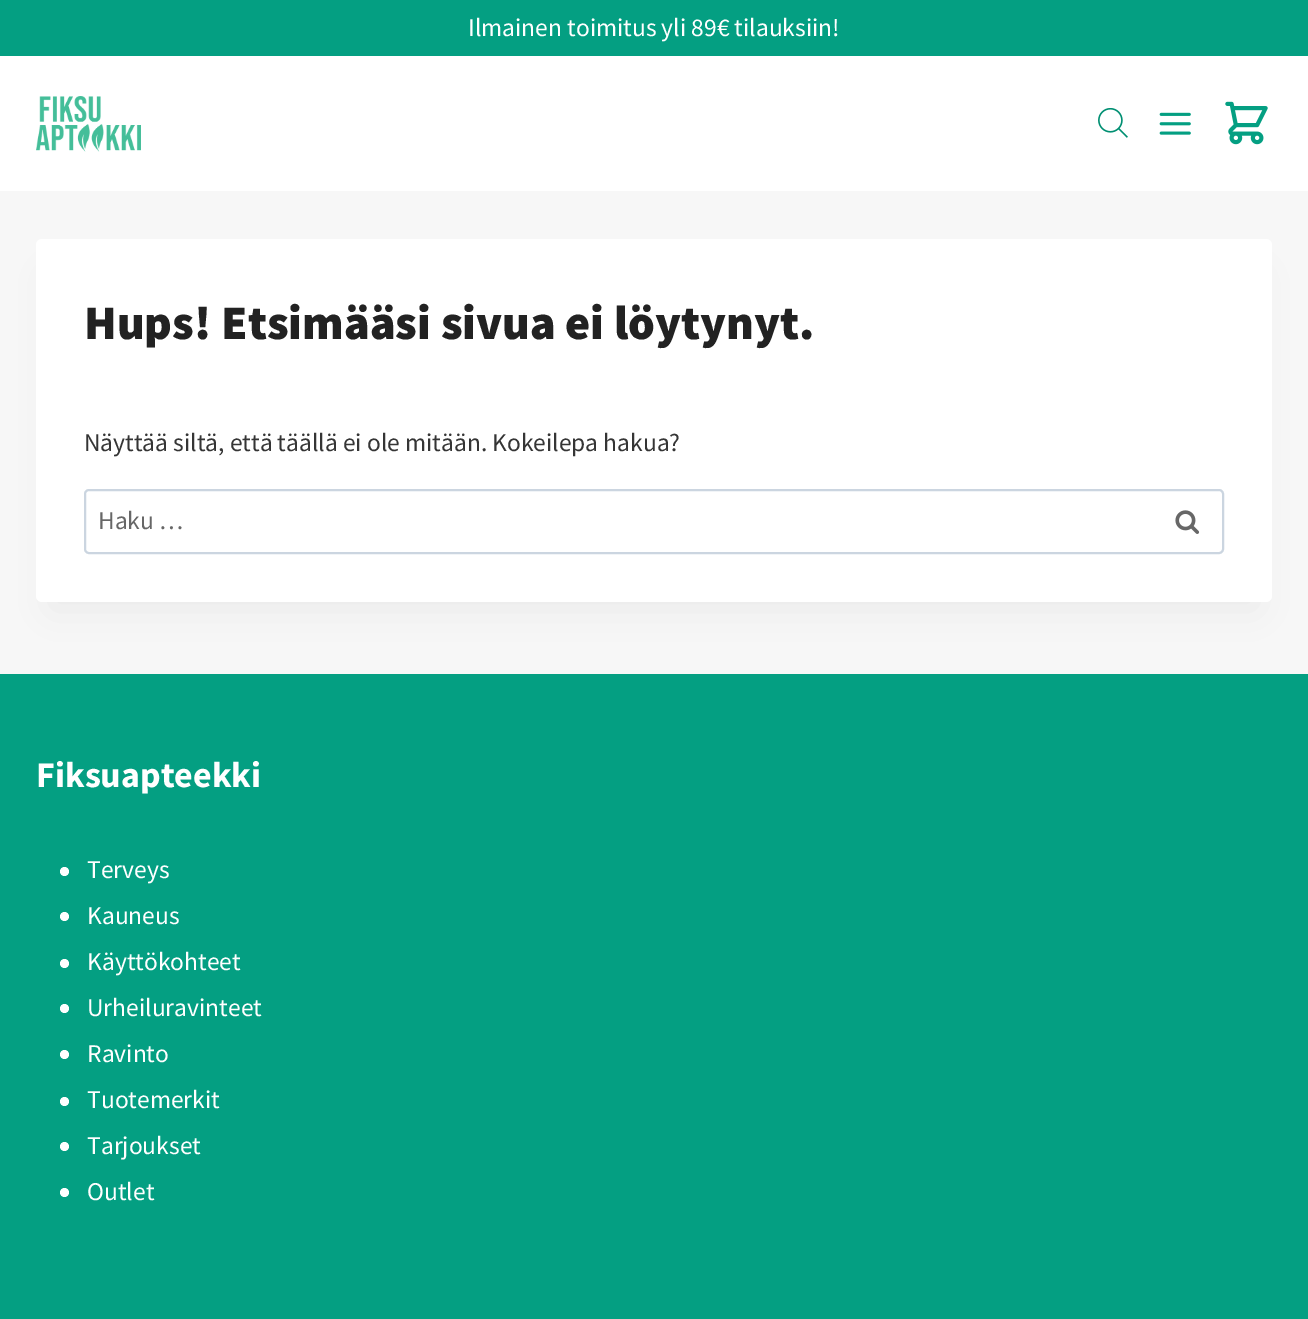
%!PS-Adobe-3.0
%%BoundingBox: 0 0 1308 1319
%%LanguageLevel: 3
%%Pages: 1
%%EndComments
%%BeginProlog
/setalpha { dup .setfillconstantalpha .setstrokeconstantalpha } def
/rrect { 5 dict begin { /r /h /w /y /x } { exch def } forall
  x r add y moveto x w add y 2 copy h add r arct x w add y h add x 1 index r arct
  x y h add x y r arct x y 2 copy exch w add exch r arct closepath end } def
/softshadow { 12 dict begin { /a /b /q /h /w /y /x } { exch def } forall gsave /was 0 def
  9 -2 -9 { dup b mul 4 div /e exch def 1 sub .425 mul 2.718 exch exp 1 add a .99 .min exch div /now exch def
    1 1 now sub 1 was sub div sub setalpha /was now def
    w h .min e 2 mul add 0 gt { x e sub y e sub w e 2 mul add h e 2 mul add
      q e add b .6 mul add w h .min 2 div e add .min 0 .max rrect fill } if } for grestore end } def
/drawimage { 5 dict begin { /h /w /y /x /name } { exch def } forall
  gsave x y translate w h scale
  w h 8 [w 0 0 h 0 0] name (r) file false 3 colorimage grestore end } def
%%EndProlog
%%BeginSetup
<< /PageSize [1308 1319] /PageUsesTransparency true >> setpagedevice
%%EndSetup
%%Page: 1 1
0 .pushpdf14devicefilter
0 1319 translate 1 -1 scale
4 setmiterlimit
0.969 setgray
0 0 1308 1319 rectfill
0.016 0.624 0.51 setrgbcolor
0 0 1308 56 rectfill
1 setgray
0 56 1308 135 rectfill
(images/1.raw) 36 96 105 56 drawimage
(images/2.raw) 1098 108 30 30 drawimage
(images/3.raw) 1159 112 32 23 drawimage
(images/4.raw) 1225 101 43 44 drawimage
0 setgray
51 276 1206 333 0 19 0.05 softshadow
1 setgray
36 239 1236 363 6 rrect fill
0.796 0.835 0.878 setrgbcolor
2 setlinewidth
85 490 1138 63 4 rrect stroke
(images/5.raw) 1175 510 25 24 drawimage
0.016 0.624 0.51 setrgbcolor
0 674 1308 645 rectfill
1 setgray
newpath 64.5 871.5 4.5 0 360 arc closepath fill
newpath 64.5 916.5 4.5 0 360 arc closepath fill
newpath 64.5 963.5 4.5 0 360 arc closepath fill
newpath 64.5 1008.5 4.5 0 360 arc closepath fill
newpath 64.5 1054.5 4.5 0 360 arc closepath fill
newpath 64.5 1101.5 4.5 0 360 arc closepath fill
newpath 64.5 1146.5 4.5 0 360 arc closepath fill
newpath 64.5 1192.5 4.5 0 360 arc closepath fill
/SourceSansPro-Regular [25.5 0 0 -25.5 0 0] selectfont
468 36 moveto (Ilmainen toimitus yli 89€ tilauksiin!) show
/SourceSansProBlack-Black [48 0 0 -48 0 0] selectfont
0.133 setgray
84 339 moveto (Hups! Etsimääsi sivua ei löytynyt.) show
/SourceSansPro-Regular [25.5 0 0 -25.5 0 0] selectfont
0.208 setgray
84 451 moveto (Näyttää siltä, että täällä ei ole mitään. Kokeilepa hakua?) show
0.404 setgray
98 529 moveto (Haku …) show
/SourceSansPro-Bold [36 0 0 -36 0 0] selectfont
1 setgray
36 787 moveto (Fiksuapteekki) show
/SourceSansPro-Regular [25.5 0 0 -25.5 0 0] selectfont
87 878 moveto (Terveys) show
87 924 moveto (Kauneus) show
87 970 moveto (Käyttökohteet) show
87 1016 moveto (Urheiluravinteet) show
87 1062 moveto (Ravinto) show
87 1108 moveto (Tuotemerkit) show
87 1154 moveto (Tarjoukset) show
87 1200 moveto (Outlet) show
.poppdf14devicefilter showpage
%%EOF
